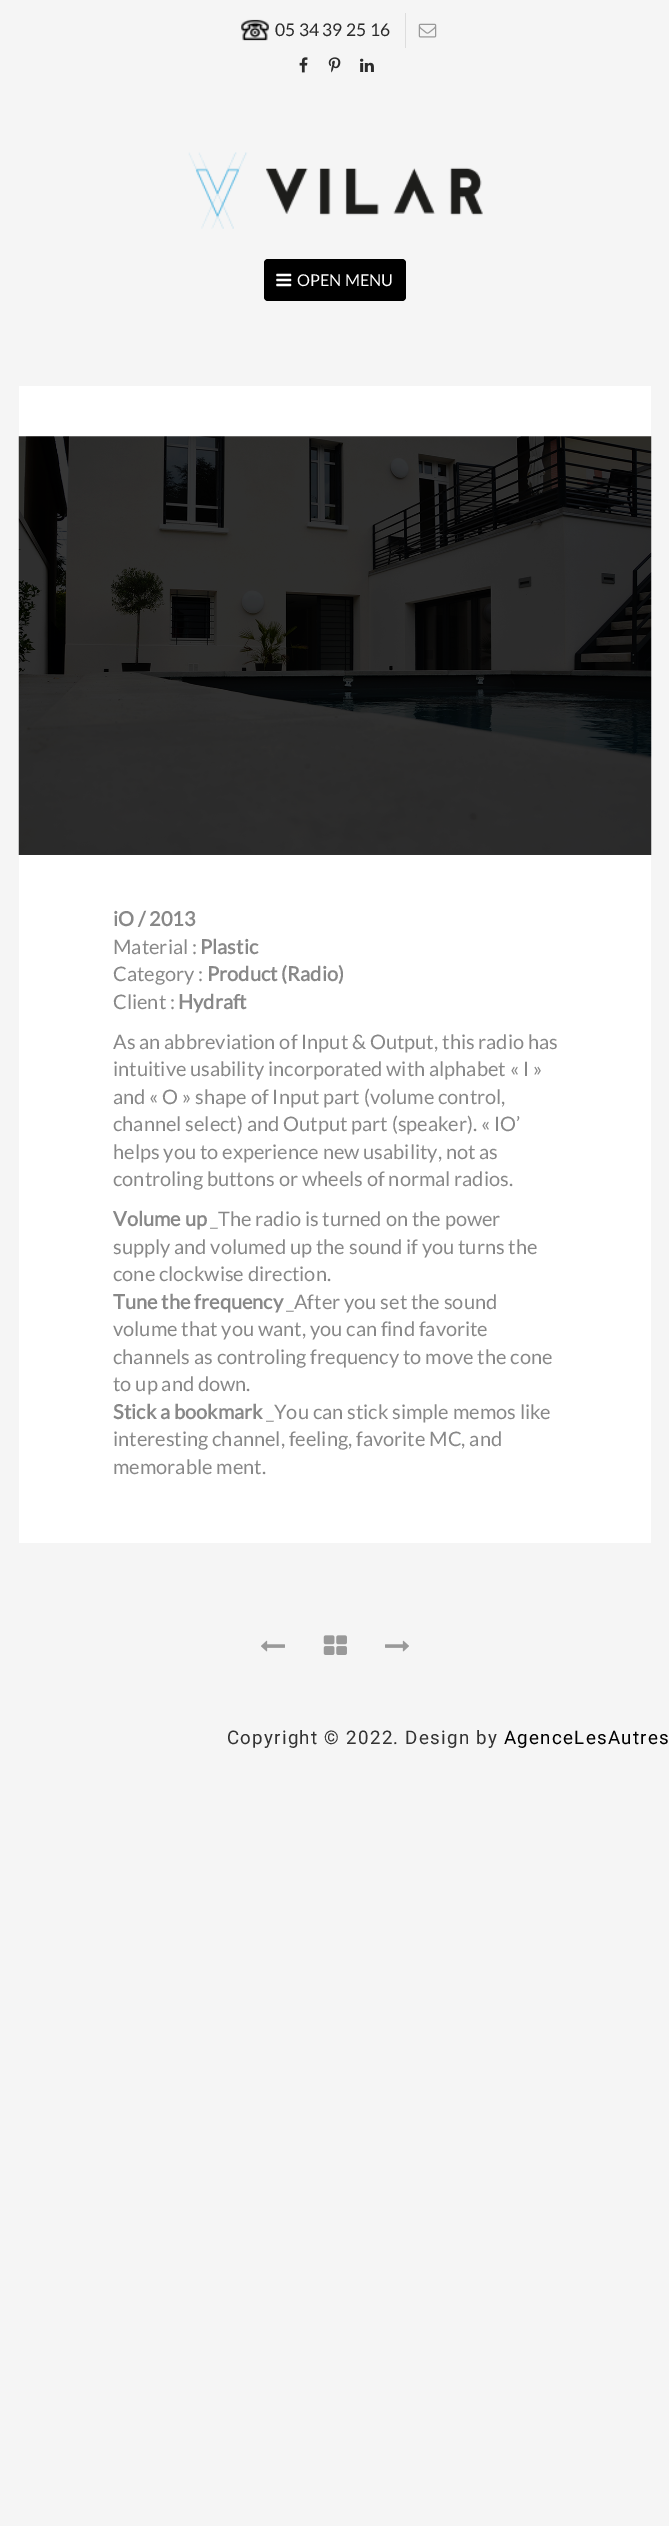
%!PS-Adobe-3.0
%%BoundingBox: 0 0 669 2526
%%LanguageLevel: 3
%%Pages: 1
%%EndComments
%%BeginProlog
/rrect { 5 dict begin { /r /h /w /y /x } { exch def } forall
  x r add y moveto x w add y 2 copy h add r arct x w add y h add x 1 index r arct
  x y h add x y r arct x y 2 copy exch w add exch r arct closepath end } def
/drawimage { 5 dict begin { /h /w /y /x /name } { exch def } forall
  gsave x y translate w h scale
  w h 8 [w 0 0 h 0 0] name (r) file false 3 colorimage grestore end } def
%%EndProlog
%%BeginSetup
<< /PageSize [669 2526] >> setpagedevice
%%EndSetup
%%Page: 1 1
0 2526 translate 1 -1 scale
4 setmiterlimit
0.961 setgray
0 0 669 2526 rectfill
(images/1.raw) 241 19 28 22 drawimage
0.867 setgray
405 13 1 35 rectfill
(images/2.raw) 418 23 19 15 drawimage
(images/3.raw) 299 57 9 16 drawimage
(images/4.raw) 328 57 13 16 drawimage
(images/5.raw) 360 58 14 14 drawimage
(images/6.raw) 188 152 295 77 drawimage
0 setgray
264 259 142 42 4 rrect fill
(images/7.raw) 276 273 16 14 drawimage
1 setgray
19 386 632 51 rectfill
(images/8.raw) 18 436 634 419 drawimage
19 855 632 688 rectfill
(images/9.raw) 261 1640 24 12 drawimage
(images/10.raw) 323 1635 24 20 drawimage
(images/11.raw) 385 1640 24 12 drawimage
/Lato-Regular [17.5 0 0 -17.5 0 0] selectfont
0.169 setgray
275 36 moveto (05 34 39 25 16) show
/Lato-Regular [16.25 0 0 -16.25 0 0] selectfont
1 setgray
297 286 moveto (OPEN MENU) show
/Lato-Bold [20 0 0 -20 0 0] selectfont
0.533 setgray
113 926 moveto (iO / 2013) show
/Lato-Regular [20 0 0 -20 0 0] selectfont
113 954 moveto (Material :) show
/Lato-Bold [20 0 0 -20 0 0] selectfont
200 954 moveto (Plastic) show
/Lato-Regular [20 0 0 -20 0 0] selectfont
113 981 moveto (Category :) show
/Lato-Bold [20 0 0 -20 0 0] selectfont
207 981 moveto (Product \(Radio\)) show
/Lato-Regular [20 0 0 -20 0 0] selectfont
113 1009 moveto (Client :) show
/Lato-Bold [20 0 0 -20 0 0] selectfont
178 1009 moveto (Hydraft) show
/Lato-Regular [20 0 0 -20 0 0] selectfont
113 1049 moveto (As an abbreviation of Input & Output, this radio has) show
113 1076 moveto (intuitive usability incorporated with alphabet « I ») show
113 1104 moveto (and « O » shape of Input part \(volume control,) show
113 1131 moveto (channel select\) and Output part \(speaker\). « IO’) show
113 1159 moveto (helps you to experience new usability, not as) show
113 1186 moveto (controling buttons or wheels of normal radios.) show
/Lato-Bold [20 0 0 -20 0 0] selectfont
113 1226 moveto (Volume up) show
/Lato-Regular [20 0 0 -20 0 0] selectfont
210 1226 moveto (_The radio is turned on the power) show
113 1254 moveto (supply and volumed up the sound if you turns the) show
113 1281 moveto (cone clockwise direction.) show
/Lato-Bold [20 0 0 -20 0 0] selectfont
113 1309 moveto (Tune the frequency) show
/Lato-Regular [20 0 0 -20 0 0] selectfont
286 1309 moveto (_After you set the sound) show
113 1336 moveto (volume that you want, you can find favorite) show
113 1364 moveto (channels as controling frequency to move the cone) show
113 1391 moveto (to up and down.) show
/Lato-Bold [20 0 0 -20 0 0] selectfont
113 1419 moveto (Stick a bookmark) show
/Lato-Regular [20 0 0 -20 0 0] selectfont
266 1419 moveto (_You can stick simple memos like) show
113 1446 moveto (interesting channel, feeling, favorite MC, and) show
113 1474 moveto (memorable ment.) show
/Roboto-Regular [18.75 0 0 -18.75 0 0] selectfont
0.2 setgray
227 1744 moveto 1.25 0 (Copyright © 2022. Design by) ashow
0 setgray
504 1744 moveto 1.25 0 (AgenceLesAutres) ashow
showpage
%%EOF
